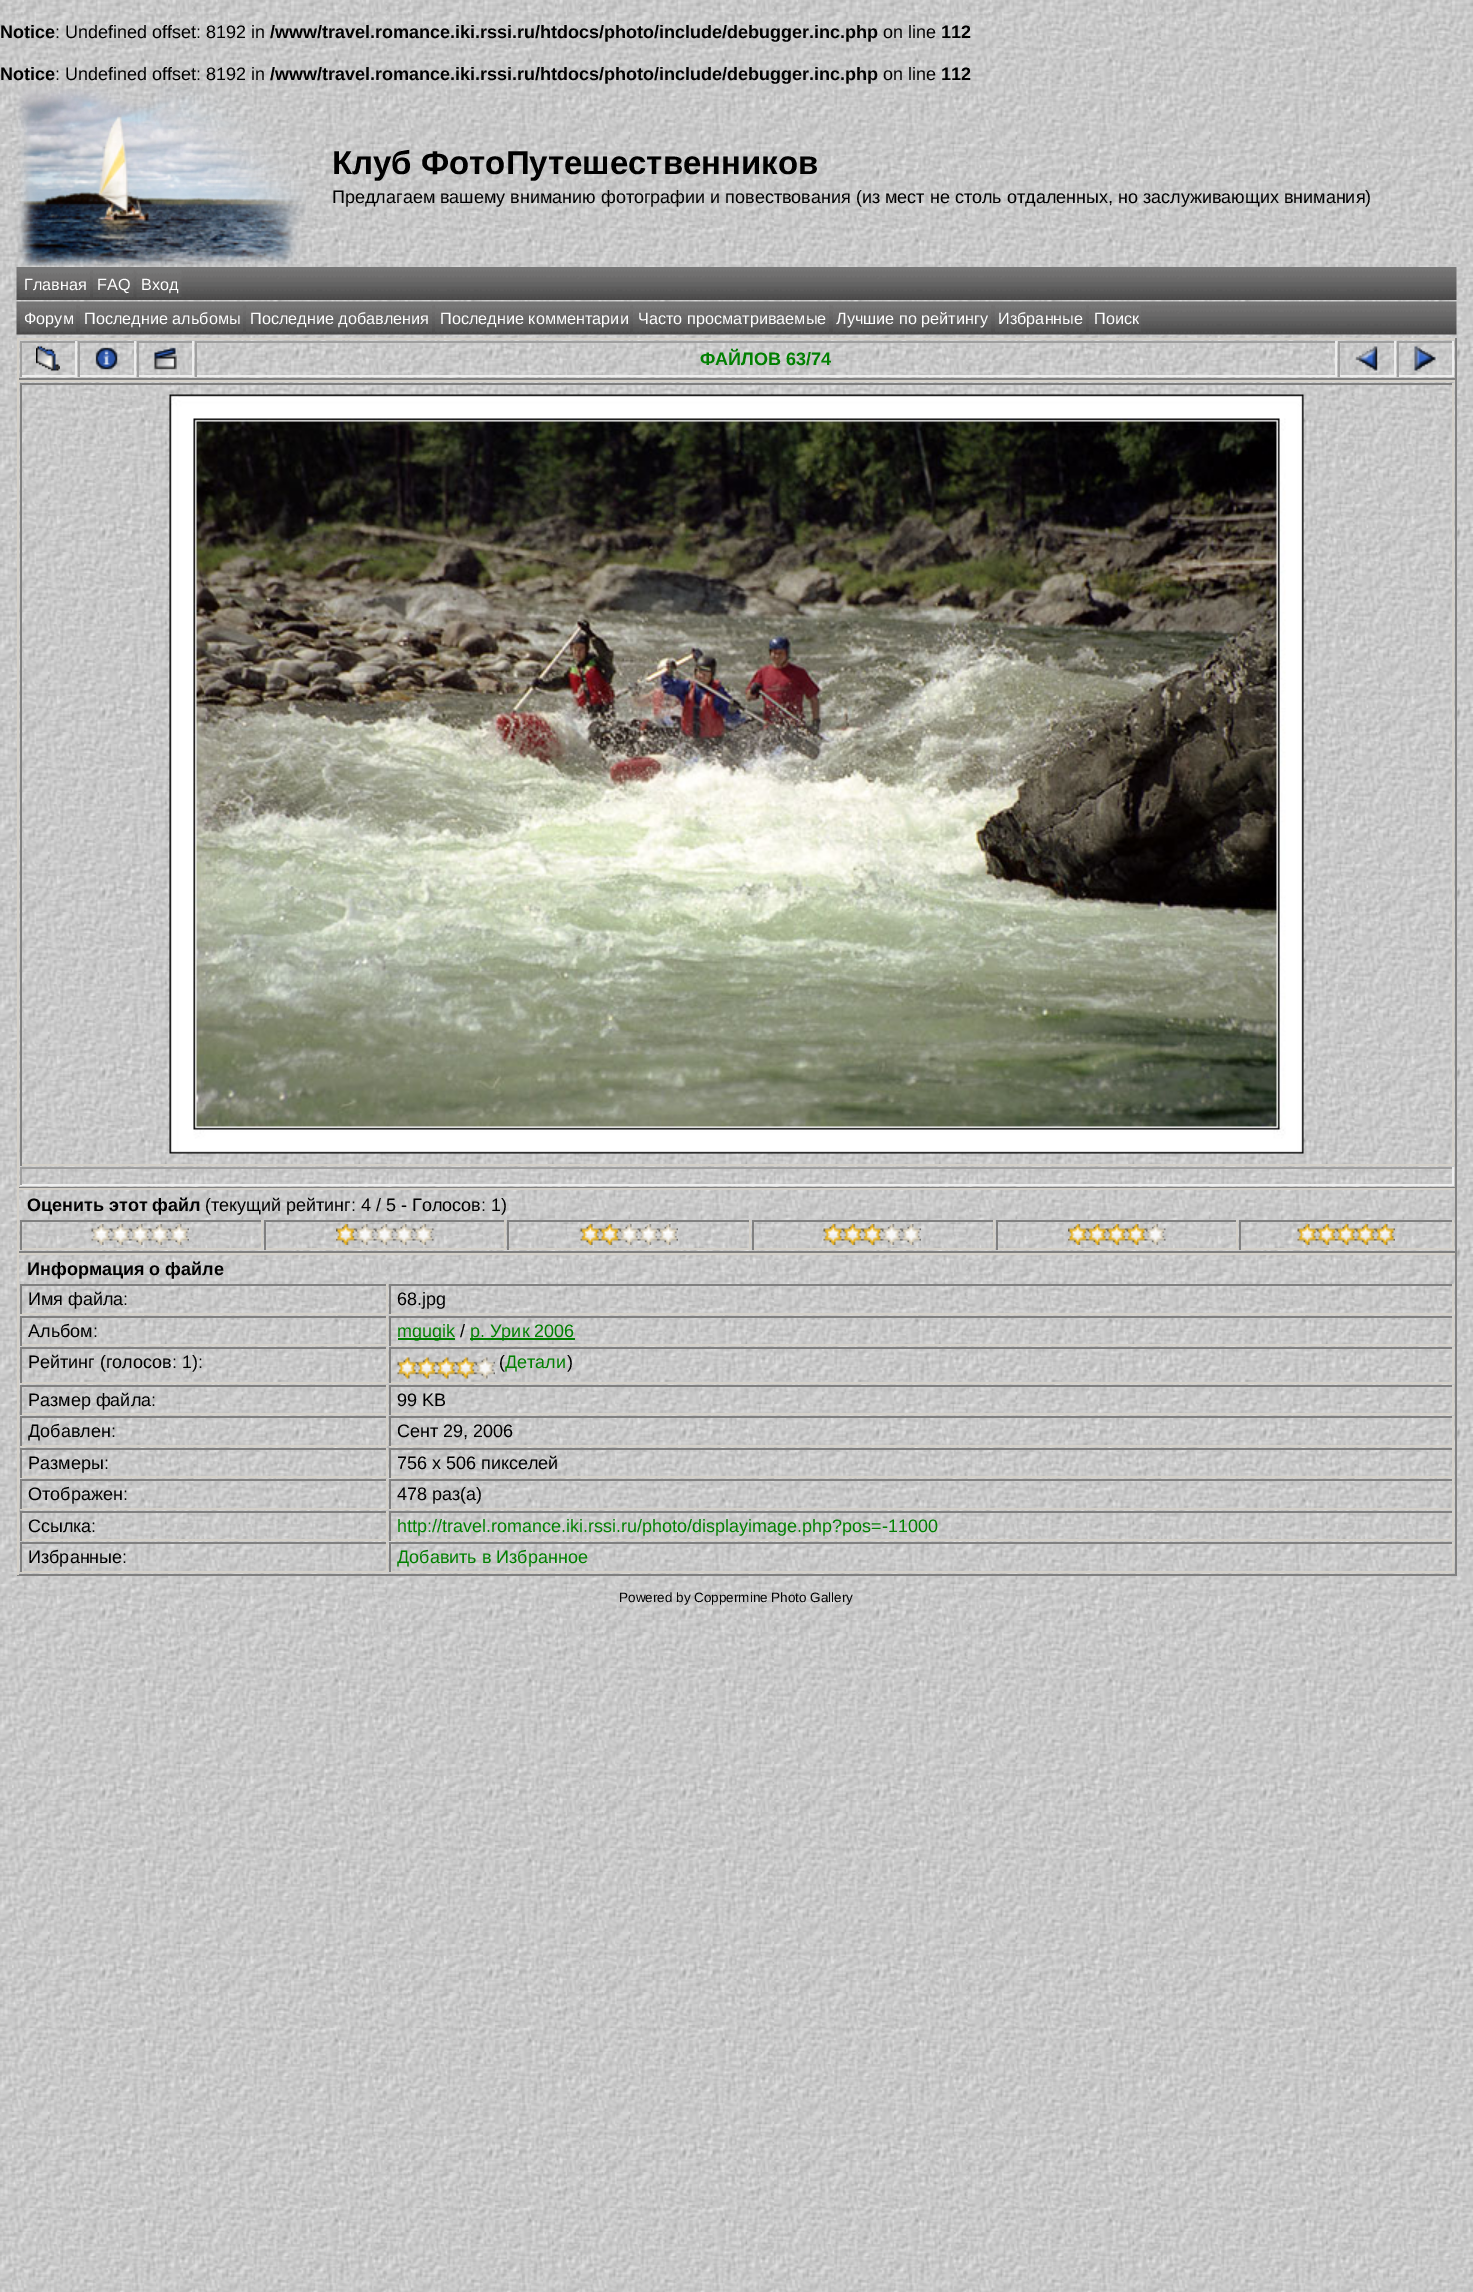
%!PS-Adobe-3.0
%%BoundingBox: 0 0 1473 2292
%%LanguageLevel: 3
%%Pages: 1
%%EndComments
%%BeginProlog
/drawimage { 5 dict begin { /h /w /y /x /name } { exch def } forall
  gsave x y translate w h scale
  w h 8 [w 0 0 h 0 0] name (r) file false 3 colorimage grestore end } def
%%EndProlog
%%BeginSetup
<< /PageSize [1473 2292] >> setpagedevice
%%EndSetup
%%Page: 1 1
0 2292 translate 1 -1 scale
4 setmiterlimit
1 setgray
0 0 1473 2292 rectfill
(images/1.raw) 0 0 1473 2292 drawimage
(images/2.raw) 17 86 289 180 drawimage
(images/3.raw) 16 267 1441 33 drawimage
(images/4.raw) 19 270 71 27 drawimage
(images/5.raw) 93 270 41 27 drawimage
(images/6.raw) 136 270 46 27 drawimage
(images/7.raw) 16 301 1441 34 drawimage
(images/8.raw) 20 305 56 27 drawimage
(images/9.raw) 80 305 163 27 drawimage
(images/10.raw) 246 305 186 27 drawimage
(images/11.raw) 435 305 195 27 drawimage
(images/12.raw) 633 305 196 27 drawimage
(images/13.raw) 833 305 158 27 drawimage
(images/14.raw) 995 305 91 27 drawimage
(images/15.raw) 1089 305 52 27 drawimage
0.831 0.816 0.784 setrgbcolor
17 338 1440 2 rectfill
0.502 setgray
1455 338 2 42 rectfill
17 378 1440 2 rectfill
0.831 0.816 0.784 setrgbcolor
17 338 2 42 rectfill
0.624 setgray
20 341 57 2 rectfill
0.933 setgray
75 341 2 36 rectfill
20 375 57 2 rectfill
0.624 setgray
20 341 2 36 rectfill
(images/16.raw) 36 346 24 25 drawimage
78 341 57 2 rectfill
0.933 setgray
134 341 2 36 rectfill
78 375 57 2 rectfill
0.624 setgray
78 341 2 36 rectfill
(images/17.raw) 95 347 23 23 drawimage
137 341 57 2 rectfill
0.933 setgray
192 341 2 36 rectfill
137 375 57 2 rectfill
0.624 setgray
137 341 2 36 rectfill
(images/18.raw) 154 347 23 23 drawimage
195 341 1142 2 rectfill
0.933 setgray
1335 341 2 36 rectfill
195 375 1142 2 rectfill
0.624 setgray
195 341 2 36 rectfill
1338 341 57 2 rectfill
0.933 setgray
1394 341 2 36 rectfill
1338 375 57 2 rectfill
0.624 setgray
1338 341 2 36 rectfill
(images/19.raw) 1355 346 23 25 drawimage
1397 341 57 2 rectfill
0.933 setgray
1452 341 2 36 rectfill
1397 375 57 2 rectfill
0.624 setgray
1397 341 2 36 rectfill
(images/20.raw) 1414 346 22 25 drawimage
0.831 0.816 0.784 setrgbcolor
17 380 1440 2 rectfill
0.502 setgray
1455 380 2 808 rectfill
17 1187 1440 1 rectfill
0.831 0.816 0.784 setrgbcolor
17 380 2 808 rectfill
0.502 setgray
20 383 1434 2 rectfill
0.831 0.816 0.784 setrgbcolor
1452 383 2 783 rectfill
20 1164 1434 2 rectfill
0.502 setgray
20 383 2 783 rectfill
(images/21.raw) 169 394 1135 760 drawimage
0.624 setgray
20 1167 1434 2 rectfill
0.933 setgray
1452 1167 2 18 rectfill
20 1184 1434 2 rectfill
0.624 setgray
20 1167 2 18 rectfill
0.831 0.816 0.784 setrgbcolor
17 1188 1440 2 rectfill
0.502 setgray
1455 1188 2 65 rectfill
17 1251 1440 2 rectfill
0.831 0.816 0.784 setrgbcolor
17 1188 2 65 rectfill
0.502 setgray
20 1220 243 2 rectfill
0.831 0.816 0.784 setrgbcolor
261 1220 2 30 rectfill
20 1248 243 2 rectfill
0.502 setgray
20 1220 2 30 rectfill
(images/22.raw) 91 1224 98 21 drawimage
264 1220 242 2 rectfill
0.831 0.816 0.784 setrgbcolor
504 1220 2 30 rectfill
264 1248 242 2 rectfill
0.502 setgray
264 1220 2 30 rectfill
(images/23.raw) 336 1224 98 21 drawimage
507 1220 243 2 rectfill
0.831 0.816 0.784 setrgbcolor
749 1220 2 30 rectfill
507 1248 243 2 rectfill
0.502 setgray
507 1220 2 30 rectfill
(images/24.raw) 580 1224 98 21 drawimage
752 1220 243 2 rectfill
0.831 0.816 0.784 setrgbcolor
993 1220 2 30 rectfill
752 1248 243 2 rectfill
0.502 setgray
752 1220 2 30 rectfill
(images/25.raw) 823 1224 98 21 drawimage
996 1220 242 2 rectfill
0.831 0.816 0.784 setrgbcolor
1236 1220 2 30 rectfill
996 1248 242 2 rectfill
0.502 setgray
996 1220 2 30 rectfill
(images/26.raw) 1068 1224 98 21 drawimage
1239 1220 215 2 rectfill
0.831 0.816 0.784 setrgbcolor
1452 1220 2 30 rectfill
1239 1248 215 2 rectfill
0.502 setgray
1239 1220 2 30 rectfill
(images/27.raw) 1297 1224 98 21 drawimage
0.831 0.816 0.784 setrgbcolor
17 1253 1440 2 rectfill
0.502 setgray
1455 1253 2 322 rectfill
17 1574 1440 2 rectfill
0.831 0.816 0.784 setrgbcolor
17 1253 2 322 rectfill
0.502 setgray
20 1284 367 2 rectfill
0.831 0.816 0.784 setrgbcolor
386 1284 2 30 rectfill
20 1313 367 2 rectfill
0.502 setgray
20 1284 2 30 rectfill
389 1284 1065 2 rectfill
0.831 0.816 0.784 setrgbcolor
1452 1284 2 30 rectfill
389 1313 1065 2 rectfill
0.502 setgray
389 1284 2 30 rectfill
20 1316 367 2 rectfill
0.831 0.816 0.784 setrgbcolor
386 1316 2 30 rectfill
20 1344 367 2 rectfill
0.502 setgray
20 1316 2 30 rectfill
389 1316 1065 2 rectfill
0.831 0.816 0.784 setrgbcolor
1452 1316 2 30 rectfill
389 1344 1065 2 rectfill
0.502 setgray
389 1316 2 30 rectfill
0 0.502 0 setrgbcolor
398 1338 57 2 rectfill
470 1338 105 2 rectfill
0.502 setgray
20 1347 367 2 rectfill
0.831 0.816 0.784 setrgbcolor
386 1347 2 36 rectfill
20 1382 367 2 rectfill
0.502 setgray
20 1347 2 36 rectfill
389 1347 1065 2 rectfill
0.831 0.816 0.784 setrgbcolor
1452 1347 2 36 rectfill
389 1382 1065 2 rectfill
0.502 setgray
389 1347 2 36 rectfill
(images/28.raw) 397 1357 98 22 drawimage
20 1385 367 2 rectfill
0.831 0.816 0.784 setrgbcolor
386 1385 2 30 rectfill
20 1413 367 2 rectfill
0.502 setgray
20 1385 2 30 rectfill
389 1385 1065 2 rectfill
0.831 0.816 0.784 setrgbcolor
1452 1385 2 30 rectfill
389 1413 1065 2 rectfill
0.502 setgray
389 1385 2 30 rectfill
20 1416 367 2 rectfill
0.831 0.816 0.784 setrgbcolor
386 1416 2 30 rectfill
20 1445 367 2 rectfill
0.502 setgray
20 1416 2 30 rectfill
389 1416 1065 2 rectfill
0.831 0.816 0.784 setrgbcolor
1452 1416 2 30 rectfill
389 1445 1065 2 rectfill
0.502 setgray
389 1416 2 30 rectfill
20 1448 367 2 rectfill
0.831 0.816 0.784 setrgbcolor
386 1448 2 30 rectfill
20 1476 367 2 rectfill
0.502 setgray
20 1448 2 30 rectfill
389 1448 1065 2 rectfill
0.831 0.816 0.784 setrgbcolor
1452 1448 2 30 rectfill
389 1476 1065 2 rectfill
0.502 setgray
389 1448 2 30 rectfill
20 1479 367 2 rectfill
0.831 0.816 0.784 setrgbcolor
386 1479 2 30 rectfill
20 1508 367 2 rectfill
0.502 setgray
20 1479 2 30 rectfill
389 1479 1065 2 rectfill
0.831 0.816 0.784 setrgbcolor
1452 1479 2 30 rectfill
389 1508 1065 2 rectfill
0.502 setgray
389 1479 2 30 rectfill
20 1511 367 2 rectfill
0.831 0.816 0.784 setrgbcolor
386 1511 2 30 rectfill
20 1539 367 2 rectfill
0.502 setgray
20 1511 2 30 rectfill
389 1511 1065 2 rectfill
0.831 0.816 0.784 setrgbcolor
1452 1511 2 30 rectfill
389 1539 1065 2 rectfill
0.502 setgray
389 1511 2 30 rectfill
20 1542 367 2 rectfill
0.831 0.816 0.784 setrgbcolor
386 1542 2 30 rectfill
20 1571 367 2 rectfill
0.502 setgray
20 1542 2 30 rectfill
389 1542 1065 2 rectfill
0.831 0.816 0.784 setrgbcolor
1452 1542 2 30 rectfill
389 1571 1065 2 rectfill
0.502 setgray
389 1542 2 30 rectfill
/LiberationSans-Bold [18 0 0 -18 0 0] selectfont
0 setgray
0 38 moveto (Notice) show
/LiberationSans-Regular [18 0 0 -18 0 0] selectfont
55 38 moveto (: Undefined offset: 8192 in) show
/LiberationSans-Bold [18 0 0 -18 0 0] selectfont
270 38 moveto (/www/travel.romance.iki.rssi.ru/htdocs/photo/include/debugger.inc.php) show
/LiberationSans-Regular [18 0 0 -18 0 0] selectfont
883 38 moveto (on line) show
/LiberationSans-Bold [18 0 0 -18 0 0] selectfont
941 38 moveto (112) show
0 80 moveto (Notice) show
/LiberationSans-Regular [18 0 0 -18 0 0] selectfont
55 80 moveto (: Undefined offset: 8192 in) show
/LiberationSans-Bold [18 0 0 -18 0 0] selectfont
270 80 moveto (/www/travel.romance.iki.rssi.ru/htdocs/photo/include/debugger.inc.php) show
/LiberationSans-Regular [18 0 0 -18 0 0] selectfont
883 80 moveto (on line) show
/LiberationSans-Bold [18 0 0 -18 0 0] selectfont
941 80 moveto (112) show
/LiberationSans-Bold [33 0 0 -33 0 0] selectfont
332 174 moveto (Клуб ФотоПутешественников) show
/LiberationSans-Regular [18 0 0 -18 0 0] selectfont
332 203 moveto (Предлагаем вашему вниманию фотографии и повествования \(из мест не столь отдаленных, но заслуживающих внимания\)) show
/LiberationSans-Regular [16.25 0 0 -16.25 0 0] selectfont
1 setgray
24 290 moveto (Главная) show
97 290 moveto (FAQ) show
141 290 moveto (Вход) show
24 324 moveto (Форум) show
84 324 moveto (Последние альбомы) show
250 324 moveto (Последние добавления) show
440 324 moveto (Последние комментарии) show
638 324 moveto (Часто просматриваемые) show
836 324 moveto (Лучшие по рейтингу) show
998 324 moveto (Избранные) show
1094 324 moveto (Поиск) show
/LiberationSans-Bold [18 0 0 -18 0 0] selectfont
0 0.502 0 setrgbcolor
700 365 moveto (ФАЙЛОВ 63/74) show
0 setgray
27 1211 moveto (Оценить этот файл) show
/LiberationSans-Regular [18 0 0 -18 0 0] selectfont
205 1211 moveto (\(текущий рейтинг: 4 / 5 - Голосов: 1\)) show
/LiberationSans-Bold [18 0 0 -18 0 0] selectfont
27 1275 moveto (Информация о файле) show
/LiberationSans-Regular [18 0 0 -18 0 0] selectfont
28 1305 moveto (Имя файла:) show
397 1305 moveto (68.jpg) show
28 1337 moveto (Альбом:) show
0 0.502 0 setrgbcolor
397 1337 moveto (mgugik) show
0 setgray
460 1337 moveto (/) show
0 0.502 0 setrgbcolor
470 1337 moveto (р. Урик 2006) show
0 setgray
28 1368 moveto (Рейтинг \(голосов: 1\):) show
499 1368 moveto (\() show
0 0.502 0 setrgbcolor
505 1368 moveto (Детали) show
0 setgray
567 1368 moveto (\)) show
28 1406 moveto (Размер файла:) show
397 1406 moveto (99 KB) show
28 1437 moveto (Добавлен:) show
397 1437 moveto (Сент 29, 2006) show
28 1469 moveto (Размеры:) show
397 1469 moveto (756 x 506 пикселей) show
28 1500 moveto (Отображен:) show
397 1500 moveto (478 раз\(а\)) show
28 1532 moveto (Ссылка:) show
0 0.502 0 setrgbcolor
397 1532 moveto (http://travel.romance.iki.rssi.ru/photo/displayimage.php?pos=-11000) show
0 setgray
28 1563 moveto (Избранные:) show
0 0.502 0 setrgbcolor
397 1563 moveto (Добавить в Избранное) show
/LiberationSans-Regular [13.5 0 0 -13.5 0 0] selectfont
0 setgray
619 1602 moveto (Powered by Coppermine Photo Gallery) show
showpage
%%EOF
